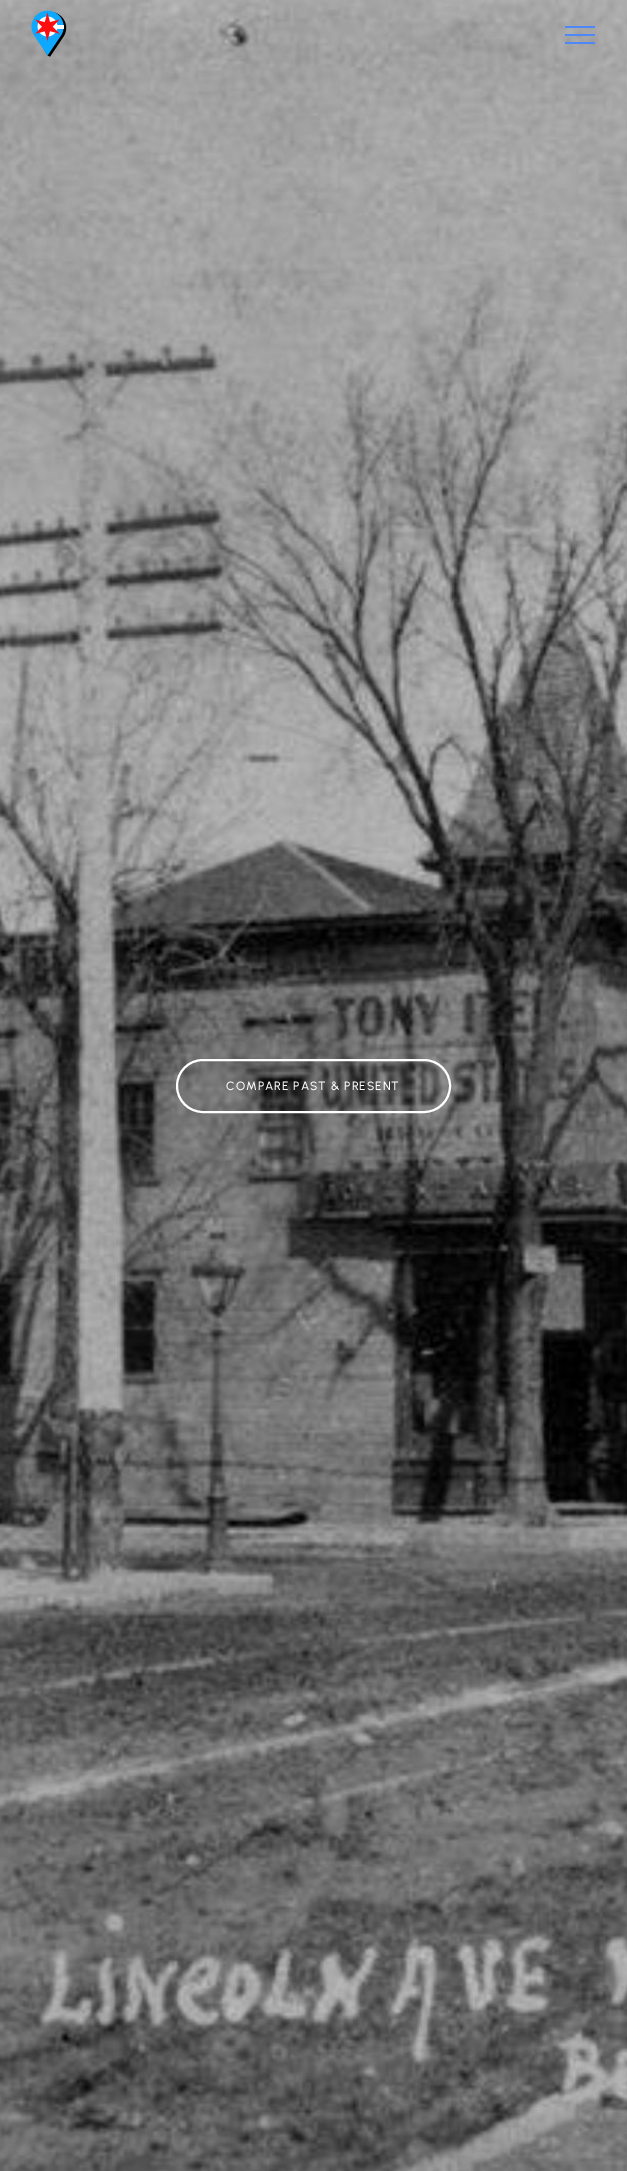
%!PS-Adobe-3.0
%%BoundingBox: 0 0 627 2171
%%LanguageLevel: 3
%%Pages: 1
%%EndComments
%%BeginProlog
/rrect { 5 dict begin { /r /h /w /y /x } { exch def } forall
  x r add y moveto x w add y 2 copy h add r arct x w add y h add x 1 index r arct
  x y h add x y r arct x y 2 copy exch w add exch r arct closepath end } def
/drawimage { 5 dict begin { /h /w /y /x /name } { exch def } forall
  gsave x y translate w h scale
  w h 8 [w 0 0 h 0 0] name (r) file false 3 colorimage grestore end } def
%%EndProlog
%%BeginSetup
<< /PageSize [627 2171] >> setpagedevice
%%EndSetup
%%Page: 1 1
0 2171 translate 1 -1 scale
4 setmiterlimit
1 setgray
0 0 627 2171 rectfill
(images/2.raw) 0 0 627 2171 drawimage
(images/1.raw) 31 10 36 47 drawimage
0.31 0.529 0.984 setrgbcolor
565 26 30 2 rectfill
565 34 30 2 rectfill
565 42 30 2 rectfill
1 setgray
2 setlinewidth
177 1060 273 52 26 rrect stroke
/Urbanist-Medium [12 0 0 -12 0 0] selectfont
226 1090 moveto 1 0 (COMPARE PAST & PRESENT) ashow
showpage
%%EOF
